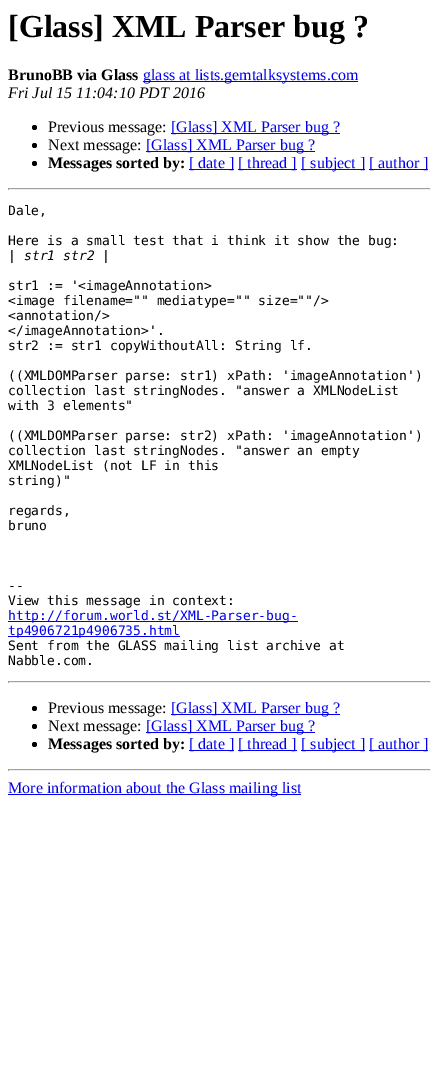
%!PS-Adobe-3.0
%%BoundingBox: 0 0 439 1083
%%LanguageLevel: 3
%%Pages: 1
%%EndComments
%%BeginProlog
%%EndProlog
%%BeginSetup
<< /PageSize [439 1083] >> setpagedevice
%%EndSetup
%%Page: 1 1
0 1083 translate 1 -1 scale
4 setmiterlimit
1 setgray
0 0 439 1083 rectfill
0 0 0.933 setrgbcolor
143 81 215 1 rectfill
0 setgray
newpath 34.5 127.5 2.5 0 360 arc closepath fill
0 0 0.933 setrgbcolor
171 133 169 1 rectfill
0 setgray
newpath 34.5 145.5 2.5 0 360 arc closepath fill
0 0 0.933 setrgbcolor
146 151 169 1 rectfill
0 setgray
newpath 34.5 163.5 2.5 0 360 arc closepath fill
0 0 0.933 setrgbcolor
189 169 45 1 rectfill
238 169 59 1 rectfill
301 169 64 1 rectfill
369 169 59 1 rectfill
0.624 setgray
8 188 423 1 rectfill
0.933 setgray
430 188 1 2 rectfill
8 189 423 1 rectfill
0.624 setgray
8 188 1 2 rectfill
0 0 0.933 setrgbcolor
8 621 290 1 rectfill
8 636 172 1 rectfill
0.624 setgray
8 681 423 1 rectfill
0.933 setgray
430 681 1 2 rectfill
8 682 423 1 rectfill
0.624 setgray
8 681 1 2 rectfill
0 setgray
newpath 34.5 708.5 2.5 0 360 arc closepath fill
0 0 0.933 setrgbcolor
171 714 169 1 rectfill
0 setgray
newpath 34.5 726.5 2.5 0 360 arc closepath fill
0 0 0.933 setrgbcolor
146 732 169 1 rectfill
0 setgray
newpath 34.5 744.5 2.5 0 360 arc closepath fill
0 0 0.933 setrgbcolor
189 750 45 1 rectfill
238 750 59 1 rectfill
301 750 64 1 rectfill
369 750 59 1 rectfill
0.624 setgray
8 769 423 1 rectfill
0.933 setgray
430 769 1 2 rectfill
8 770 423 1 rectfill
0.624 setgray
8 769 1 2 rectfill
0 0 0.933 setrgbcolor
8 794 293 1 rectfill
/LiberationSerif-Bold [32 0 0 -32 0 0] selectfont
0 setgray
8 37 moveto ([Glass] XML Parser bug ?) show
/LiberationSerif-Bold [16 0 0 -16 0 0] selectfont
8 80 moveto (BrunoBB via Glass) show
/LiberationSerif-Regular [16 0 0 -16 0 0] selectfont
0 0 0.933 setrgbcolor
143 80 moveto (glass at lists.gemtalksystems.com) show
/LiberationSerif-Italic [16 0 0 -16 0 0] selectfont
0 setgray
8 98 moveto (Fri Jul 15 11:04:10 PDT 2016) show
/LiberationSerif-Regular [16 0 0 -16 0 0] selectfont
48 132 moveto (Previous message:) show
0 0 0.933 setrgbcolor
171 132 moveto ([Glass] XML Parser bug ?) show
0 setgray
48 150 moveto (Next message:) show
0 0 0.933 setrgbcolor
146 150 moveto ([Glass] XML Parser bug ?) show
/LiberationSerif-Bold [16 0 0 -16 0 0] selectfont
0 setgray
48 168 moveto (Messages sorted by:) show
/LiberationSerif-Regular [16 0 0 -16 0 0] selectfont
0 0 0.933 setrgbcolor
189 168 moveto ([ date ]) show
238 168 moveto ([ thread ]) show
301 168 moveto ([ subject ]) show
369 168 moveto ([ author ]) show
/DejaVuSansMono-Regular [13 0 0 -13 0 0] selectfont
0 setgray
8 215 moveto (Dale,) show
8 245 moveto (Here is a small test that i think it show the bug:) show
8 260 moveto (|) show
/DejaVuSansMono-Italic [13 0 0 -13 0 0] selectfont
24 260 moveto (str1 str2 |) show
/DejaVuSansMono-Regular [13 0 0 -13 0 0] selectfont
8 290 moveto (str1 := '<imageAnnotation>) show
8 305 moveto (<image filename="" mediatype="" size=""/>) show
8 320 moveto (<annotation/>) show
8 335 moveto (</imageAnnotation>'.) show
8 350 moveto (str2 := str1 copyWithoutAll: String lf.) show
8 380 moveto (\(\(XMLDOMParser parse: str1\) xPath: 'imageAnnotation'\)) show
8 395 moveto (collection last stringNodes. "answer a XMLNodeList) show
8 410 moveto (with 3 elements") show
8 440 moveto (\(\(XMLDOMParser parse: str2\) xPath: 'imageAnnotation'\)) show
8 455 moveto (collection last stringNodes. "answer an empty) show
8 470 moveto (XMLNodeList \(not LF in this) show
8 485 moveto (string\)") show
8 515 moveto (regards,) show
8 530 moveto (bruno) show
8 590 moveto (--) show
8 605 moveto (View this message in context:) show
0 0 0.933 setrgbcolor
8 620 moveto (http://forum.world.st/XML-Parser-bug-) show
8 635 moveto (tp4906721p4906735.html) show
0 setgray
8 650 moveto (Sent from the GLASS mailing list archive at) show
8 665 moveto (Nabble.com.) show
/LiberationSerif-Regular [16 0 0 -16 0 0] selectfont
48 713 moveto (Previous message:) show
0 0 0.933 setrgbcolor
171 713 moveto ([Glass] XML Parser bug ?) show
0 setgray
48 731 moveto (Next message:) show
0 0 0.933 setrgbcolor
146 731 moveto ([Glass] XML Parser bug ?) show
/LiberationSerif-Bold [16 0 0 -16 0 0] selectfont
0 setgray
48 749 moveto (Messages sorted by:) show
/LiberationSerif-Regular [16 0 0 -16 0 0] selectfont
0 0 0.933 setrgbcolor
189 749 moveto ([ date ]) show
238 749 moveto ([ thread ]) show
301 749 moveto ([ subject ]) show
369 749 moveto ([ author ]) show
8 793 moveto (More information about the Glass mailing list) show
showpage
%%EOF
